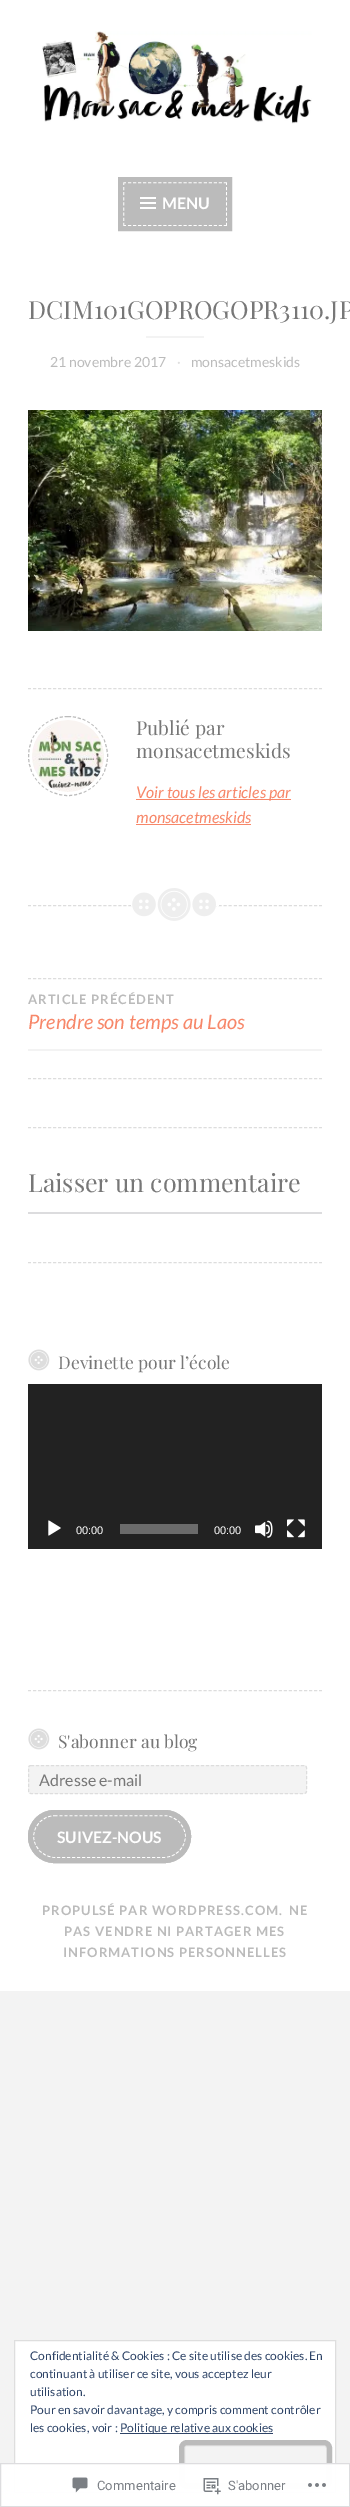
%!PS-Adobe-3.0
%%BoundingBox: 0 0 350 2507
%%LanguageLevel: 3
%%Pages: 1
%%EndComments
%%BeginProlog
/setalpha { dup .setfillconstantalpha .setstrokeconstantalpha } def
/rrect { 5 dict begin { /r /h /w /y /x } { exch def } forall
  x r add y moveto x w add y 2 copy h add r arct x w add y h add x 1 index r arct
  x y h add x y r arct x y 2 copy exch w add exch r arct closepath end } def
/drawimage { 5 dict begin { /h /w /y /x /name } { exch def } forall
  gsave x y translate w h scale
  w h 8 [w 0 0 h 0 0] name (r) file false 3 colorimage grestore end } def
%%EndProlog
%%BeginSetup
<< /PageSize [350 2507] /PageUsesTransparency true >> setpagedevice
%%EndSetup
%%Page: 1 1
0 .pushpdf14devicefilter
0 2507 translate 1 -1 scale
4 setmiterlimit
0.953 setgray
0 0 350 2507 rectfill
1 setgray
0 0 350 1991 rectfill
(images/1.raw) 42 31 270 93 drawimage
0.733 setgray
123 182 104 44 rectfill
1 setgray
[3 2.05] 0 setdash
newpath 123 182.5 moveto 227 182.5 lineto stroke
[3 2.12] 0 setdash
newpath 226.5 182 moveto 226.5 226 lineto stroke
[3 2.05] 0 setdash
newpath 123 225.5 moveto 227 225.5 lineto stroke
[3 2.12] 0 setdash
newpath 123.5 182 moveto 123.5 226 lineto stroke
0.733 setgray
5 setlinewidth
[] 0 setdash
120.5 179.5 109 49 rectstroke
(images/2.raw) 140 197 16 12 drawimage
0.867 setgray
1 setlinewidth
[3 2.02] 0 setdash
newpath 28 905.5 moveto 322 905.5 lineto stroke
0.953 setgray
146 336 58 2 rectfill
(images/3.raw) 28 410 294 221 drawimage
0.867 setgray
newpath 28 688.5 moveto 322 688.5 lineto stroke
0.733 setgray
[3 2] 0 setdash
newpath 68 716.5 moveto 90 716.5 107.5 734 107.5 756 curveto 107.5 778 90 795.5 68 795.5 curveto 46 795.5 28.5 778 28.5 756 curveto 28.5 734 46 716.5 68 716.5 curveto closepath stroke
(images/4.raw) 32 720 72 72 drawimage
0.969 0.529 0.412 setrgbcolor
136 799 155 1 rectfill
136 824 115 1 rectfill
1 setgray
131 905 88 1 rectfill
(images/5.raw) 132 888 84 33 drawimage
0.867 setgray
[3 2.02] 0 setdash
newpath 28 978.5 moveto 322 978.5 lineto stroke
newpath 28 1078.5 moveto 322 1078.5 lineto stroke
0.953 setgray
28 1049 294 2 rectfill
0.867 setgray
newpath 28 1127.5 moveto 322 1127.5 lineto stroke
0.863 0.863 0.871 setrgbcolor
28 1212 294 2 rectfill
0.867 setgray
newpath 28 1262.5 moveto 322 1262.5 lineto stroke
(images/6.raw) 28 1349 22 22 drawimage
0.133 setgray
28 1384 294 165 rectfill
(images/7.raw) 48 1520 13 16 drawimage
0.42 setgray
120 1524 78 10 rectfill
(images/8.raw) 255 1520 18 18 drawimage
(images/9.raw) 287 1519 18 19 drawimage
0.867 setgray
newpath 28 1690.5 moveto 322 1690.5 lineto stroke
(images/6.raw) 28 1728 22 22 drawimage
0.953 setgray
28 1765 279 29 3 rrect fill
0.867 setgray
[3 2] 0 setdash
newpath 31 1765.5 moveto 304 1765.5 lineto 305.5 1765.5 306.5 1766.5 306.5 1768 curveto 306.5 1791 lineto 306.5 1792.5 305.5 1793.5 304 1793.5 curveto 31 1793.5 lineto 29.5 1793.5 28.5 1792.5 28.5 1791 curveto 28.5 1768 lineto 28.5 1766.5 29.5 1765.5 31 1765.5 curveto closepath stroke
0.733 setgray
5 setlinewidth
[] 0 setdash
30.5 1812.5 158 48 24 rrect stroke
33 1815 153 43 21.5 rrect fill
1 setgray
1 setlinewidth
[3 2] 0 setdash
newpath 54.5 1815.5 moveto 164.5 1815.5 lineto 176 1815.5 185.5 1825 185.5 1836.5 curveto 185.5 1848 176 1857.5 164.5 1857.5 curveto 54.5 1857.5 lineto 43 1857.5 33.5 1848 33.5 1836.5 curveto 33.5 1825 43 1815.5 54.5 1815.5 curveto closepath stroke
0.733 setgray
5 setlinewidth
[] 0 setdash
30.5 1812.5 158 48 24 rrect stroke
1 setgray
newpath 14.5 2340.5 moveto 335.5 2340.5 lineto 335.5 2492.5 lineto 14.5 2492.5 lineto closepath gsave fill grestore
0.871 setgray
1 setlinewidth
stroke
0.18 0.267 0.404 setrgbcolor
120 2433 153 1 rectfill
0.953 setgray
184.5 2445.5 142 38 2.5 rrect gsave fill grestore
0.871 setgray
stroke
0.733 setgray
5 setlinewidth
181.5 2442.5 148 44 5.5 rrect stroke
0.98 setalpha
1 setgray
0 2463 350 44 rectfill
0.863 0.863 0.871 setrgbcolor
1 setlinewidth
0.5 2463.5 349 43 rectstroke
1 setalpha
(images/10.raw) 72 2477 16 16 drawimage
(images/11.raw) 203 2478 18 17 drawimage
(images/12.raw) 308 2483 18 4 drawimage
/Lato-Bold [16 0 0 -16 0 0] selectfont
1 setgray
162 209 moveto (MENU) show
/PlayfairDisplay-Regular [25 0 0 -25 0 0] selectfont
0.467 setgray
28 319 moveto (DCIM101GOPROGOPR3110.JP) show
/Lato-Regular [14 0 0 -14 0 0] selectfont
0.733 setgray
50 367 moveto (21 novembre 2017) show
0.867 setgray
177 367 moveto (·) show
0.733 setgray
191 367 moveto (monsacetmeskids) show
/PlayfairDisplay-Regular [19.25 0 0 -19.25 0 0] selectfont
0.467 setgray
136 735 moveto (Publié par) show
136 758 moveto (monsacetmeskids) show
/Lato-Italic [16 0 0 -16 0 0] selectfont
0.969 0.529 0.412 setrgbcolor
136 798 moveto (Voir tous les articles par) show
136 823 moveto (monsacetmeskids) show
/Lato-Bold [13 0 0 -13 0 0] selectfont
0.733 setgray
28 1004 moveto 1 0 (ARTICLE PRÉCÉDENT) ashow
/Lato-Italic [20 0 0 -20 0 0] selectfont
0.969 0.529 0.412 setrgbcolor
28 1029 moveto (Prendre son temps au Laos) show
/PlayfairDisplay-Regular [25 0 0 -25 0 0] selectfont
0.467 setgray
28 1192 moveto (Laisser un commentaire) show
/PlayfairDisplay-Regular [17.5 0 0 -17.5 0 0] selectfont
58 1369 moveto (Devinette pour l’école) show
/LiberationSans-Regular [11 0 0 -11 0 0] selectfont
1 setgray
76 1534 moveto (00:00) show
214 1534 moveto (00:00) show
/PlayfairDisplay-Regular [17.5 0 0 -17.5 0 0] selectfont
0.467 setgray
58 1748 moveto (S'abonner au blog) show
/Lato-Regular [16 0 0 -16 0 0] selectfont
39 1786 moveto (Adresse e-mail) show
/Lato-Bold [15.75 0 0 -15.75 0 0] selectfont
1 setgray
57 1843 moveto (SUIVEZ-NOUS) show
/Lato-Bold [13 0 0 -13 0 0] selectfont
0.733 setgray
42 1915 moveto 1 0 (PROPULSÉ PAR WORDPRESS.COM.) ashow
289 1915 moveto 1 0 (NE) ashow
64 1936 moveto 1 0 (PAS VENDRE NI PARTAGER MES) ashow
63 1957 moveto 1 0 (INFORMATIONS PERSONNELLES) ashow
/Lato-Regular [12 0 0 -12 0 0] selectfont
0.18 0.267 0.404 setrgbcolor
30 2360 moveto (Confidentialité & Cookies : Ce site utilise des cookies. En) show
30 2378 moveto (continuant à utiliser ce site, vous acceptez leur) show
30 2396 moveto (utilisation.) show
30 2414 moveto (Pour en savoir davantage, y compris comment contrôler) show
30 2432 moveto (les cookies, voir :) show
120 2432 moveto (Politique relative aux cookies) show
/Roboto-Regular [13 0 0 -13 0 0] selectfont
0.482 0.498 0.522 setrgbcolor
97 2490 moveto (Commentaire) show
228 2490 moveto (S'abonner) show
.poppdf14devicefilter showpage
%%EOF
